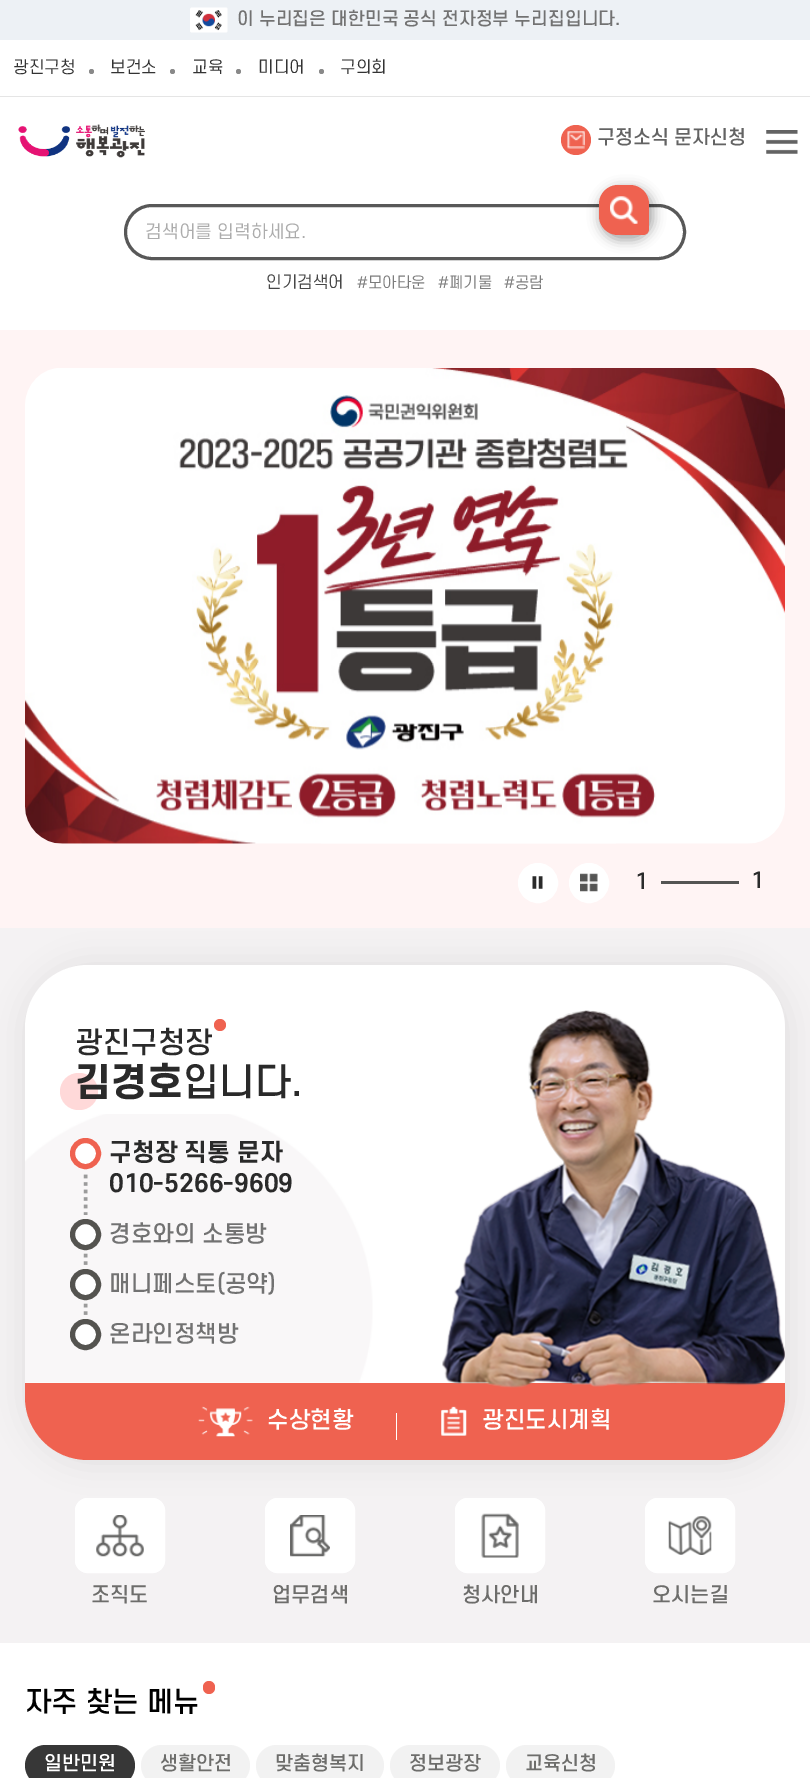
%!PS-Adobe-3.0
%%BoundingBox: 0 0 810 1778
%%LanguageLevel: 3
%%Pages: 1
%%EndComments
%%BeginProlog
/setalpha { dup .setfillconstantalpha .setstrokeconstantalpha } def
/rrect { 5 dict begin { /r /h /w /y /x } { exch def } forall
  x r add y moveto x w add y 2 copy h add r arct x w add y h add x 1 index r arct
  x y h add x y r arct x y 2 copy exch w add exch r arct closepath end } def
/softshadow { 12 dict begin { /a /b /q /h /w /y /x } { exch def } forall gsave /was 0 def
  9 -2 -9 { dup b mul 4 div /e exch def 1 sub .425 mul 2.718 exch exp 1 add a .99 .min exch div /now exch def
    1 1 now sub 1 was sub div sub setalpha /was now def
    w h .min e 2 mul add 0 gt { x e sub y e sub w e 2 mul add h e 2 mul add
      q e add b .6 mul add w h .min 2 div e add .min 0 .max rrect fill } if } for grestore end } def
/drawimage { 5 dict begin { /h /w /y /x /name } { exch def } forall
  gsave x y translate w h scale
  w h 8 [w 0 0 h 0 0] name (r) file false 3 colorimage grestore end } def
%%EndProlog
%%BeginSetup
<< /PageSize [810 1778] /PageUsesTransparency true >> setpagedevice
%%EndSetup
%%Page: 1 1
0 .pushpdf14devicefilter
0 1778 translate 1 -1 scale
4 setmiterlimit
1 setgray
0 0 810 1778 rectfill
0.929 0.945 0.961 setrgbcolor
0 0 810 40 rectfill
(images/1.raw) 190 7 38 26 drawimage
0.898 setgray
0 96 810 1 rectfill
0.537 setgray
newpath 91.5 71.5 2.5 0 360 arc closepath fill
newpath 172.5 71.5 2.5 0 360 arc closepath fill
newpath 238.5 71.5 2.5 0 360 arc closepath fill
newpath 321.5 71.5 2.5 0 360 arc closepath fill
(images/2.raw) 18 124 127 34 drawimage
0.937 0.384 0.314 setrgbcolor
newpath 576 140 15 0 360 arc closepath fill
(images/3.raw) 567 131 18 18 drawimage
(images/4.raw) 766 130 32 24 drawimage
0.345 setgray
3 setlinewidth
125.5 205.5 559 53 26.5 rrect stroke
0 setgray
600 188 53 52 20 6 0.35 softshadow
0.937 0.384 0.314 setrgbcolor
newpath 618 185 moveto 630 185 lineto 640.5 185 649 193.5 649 204 curveto 649 229 lineto 649 232.5 646.5 235 643 235 curveto 618 235 lineto 607.5 235 599 226.5 599 216 curveto 599 204 lineto 599 193.5 607.5 185 618 185 curveto closepath fill
(images/5.raw) 610 196 28 28 drawimage
0.957 0.949 0.953 setrgbcolor
0 928 810 715 rectfill
1 setgray
75 1498 90 75 13 rrect fill
(images/15.raw) 96 1515 48 42 drawimage
1 setlinewidth
75.5 1498.5 89 74 12.5 rrect stroke
265 1498 90 75 13 rrect fill
(images/16.raw) 290 1515 40 42 drawimage
265.5 1498.5 89 74 12.5 rrect stroke
455 1498 90 75 13 rrect fill
(images/17.raw) 481 1513 38 45 drawimage
455.5 1498.5 89 74 12.5 rrect stroke
645 1498 90 75 13 rrect fill
(images/18.raw) 668 1516 44 39 drawimage
645.5 1498.5 89 74 12.5 rrect stroke
0 setgray
26 966 760 495 63 15.5 0.08 softshadow
1 0.957 0.957 setrgbcolor
0 330 810 598 rectfill
(images/6.raw) 25 368 760 476 drawimage
1 setgray
newpath 538 883 19.5 0 360 arc closepath gsave fill grestore
stroke
(images/7.raw) 532 876 11 13 drawimage
newpath 589 883 19.5 0 360 arc closepath gsave fill grestore
stroke
(images/8.raw) 580 873 18 19 drawimage
0.329 0.329 0.325 setrgbcolor
661 881 78 3 rectfill
1 setgray
newpath 88 965 moveto 722 965 lineto 757 965 785 993 785 1028 curveto 785 1383 lineto 25 1383 lineto 25 1028 lineto 25 993 53 965 88 965 curveto closepath fill
0.937 0.384 0.314 setrgbcolor
newpath 25 1383 moveto 785 1383 lineto 785 1397 lineto 785 1432 757 1460 722 1460 curveto 88 1460 lineto 53 1460 25 1432 25 1397 curveto closepath fill
newpath 220 1025 6 0 360 arc closepath fill
1 0.851 0.851 setrgbcolor
60 1073 38 37 18.5 rrect fill
(images/14.raw) 25 1114 348 269 drawimage
1 setgray
newpath 85.5 1153.5 13 0 360 arc closepath gsave fill grestore
0.937 0.384 0.314 setrgbcolor
5 setlinewidth
stroke
(images/9.raw) 83 1174 5 41 drawimage
1 setgray
newpath 85.5 1234.5 13 0 360 arc closepath gsave fill grestore
0.329 0.325 0.31 setrgbcolor
stroke
(images/10.raw) 83 1253 5 12 drawimage
1 setgray
newpath 85.5 1284.5 13 0 360 arc closepath gsave fill grestore
0.329 0.325 0.31 setrgbcolor
stroke
(images/10.raw) 83 1303 5 12 drawimage
1 setgray
newpath 85.5 1334.5 13 0 360 arc closepath gsave fill grestore
0.329 0.325 0.31 setrgbcolor
stroke
(images/11.raw) 198 1406 55 31 drawimage
1 setgray
396 1413 1 27 rectfill
(images/12.raw) 441 1406 26 30 drawimage
(images/13.raw) 442 1010 343 378 drawimage
0.937 0.384 0.314 setrgbcolor
203 1681 12 13 6 rrect fill
0.216 setgray
25 1745 110 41 20.5 rrect fill
0.949 setgray
141 1745 109 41 20.5 rrect fill
256 1745 128 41 20.5 rrect fill
390 1745 110 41 20.5 rrect fill
506 1745 109 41 20.5 rrect fill
/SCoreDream-Medium [17.5 0 0 -17.5 0 0] selectfont
0.447 setgray
237 25 moveto (이 누리집은 대한민국 공식 전자정부 누리집입니다.) show
/SCoreDream-Regular [16.25 0 0 -16.25 0 0] selectfont
0.2 setgray
13 73 moveto (광진구청) show
110 73 moveto (보건소) show
192 73 moveto (교육) show
258 73 moveto (미디어) show
340 73 moveto (구의회) show
/SCoreDream-Medium [18.75 0 0 -18.75 0 0] selectfont
0.388 setgray
597 144 moveto (구정소식 문자신청) show
/SCoreDream-Regular [17.5 0 0 -17.5 0 0] selectfont
0.675 setgray
145 238 moveto (검색어를 입력하세요.) show
/SCoreDream-Regular [16.25 0 0 -16.25 0 0] selectfont
0.278 setgray
266 288 moveto (인기검색어) show
/SCoreDream-Regular [15 0 0 -15 0 0] selectfont
0.486 setgray
357 288 moveto (#모아타운) show
438 288 moveto (#폐기물) show
504 288 moveto (#공람) show
/SCoreDream-Medium [21 0 0 -21 0 0] selectfont
0.165 setgray
635 889 moveto (1) show
751 888 moveto (1) show
/SCoreDream-Medium [28.75 0 0 -28.75 0 0] selectfont
75 1053 moveto (광진구청장) show
/SCoreDream-ExtraBold [37.5 0 0 -37.5 0 0] selectfont
75 1096 moveto (김경호) show
/SCoreDream-Medium [37.5 0 0 -37.5 0 0] selectfont
183 1096 moveto (입니다.) show
/SCoreDream-Bold [23.75 0 0 -23.75 0 0] selectfont
109 1161 moveto (구청장 직통 문자) show
109 1192 moveto (010-5266-9609) show
/SCoreDream-Medium [22.5 0 0 -22.5 0 0] selectfont
0.447 setgray
109 1242 moveto (경호와의 소통방) show
109 1292 moveto (매니페스토\(공약\)) show
109 1342 moveto (온라인정책방) show
/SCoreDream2-Medium [22.5 0 0 -22.5 0 0] selectfont
1 setgray
267 1428 moveto (수상현황) show
482 1428 moveto (광진도시계획) show
/SCoreDream-Medium [20 0 0 -20 0 0] selectfont
0.427 0.427 0.42 setrgbcolor
91 1602 moveto (조직도) show
272 1602 moveto (업무검색) show
462 1602 moveto (청사안내) show
652 1602 moveto (오시는길) show
/SCoreDream2-Medium [27.5 0 0 -27.5 0 0] selectfont
0 setgray
25 1712 moveto (자주 찾는 메뉴) show
/SCoreDream-Medium [18.75 0 0 -18.75 0 0] selectfont
1 setgray
44 1770 moveto (일반민원) show
0.427 0.427 0.42 setrgbcolor
160 1770 moveto (생활안전) show
275 1770 moveto (맞춤형복지) show
409 1770 moveto (정보광장) show
525 1770 moveto (교육신청) show
.poppdf14devicefilter showpage
%%EOF
